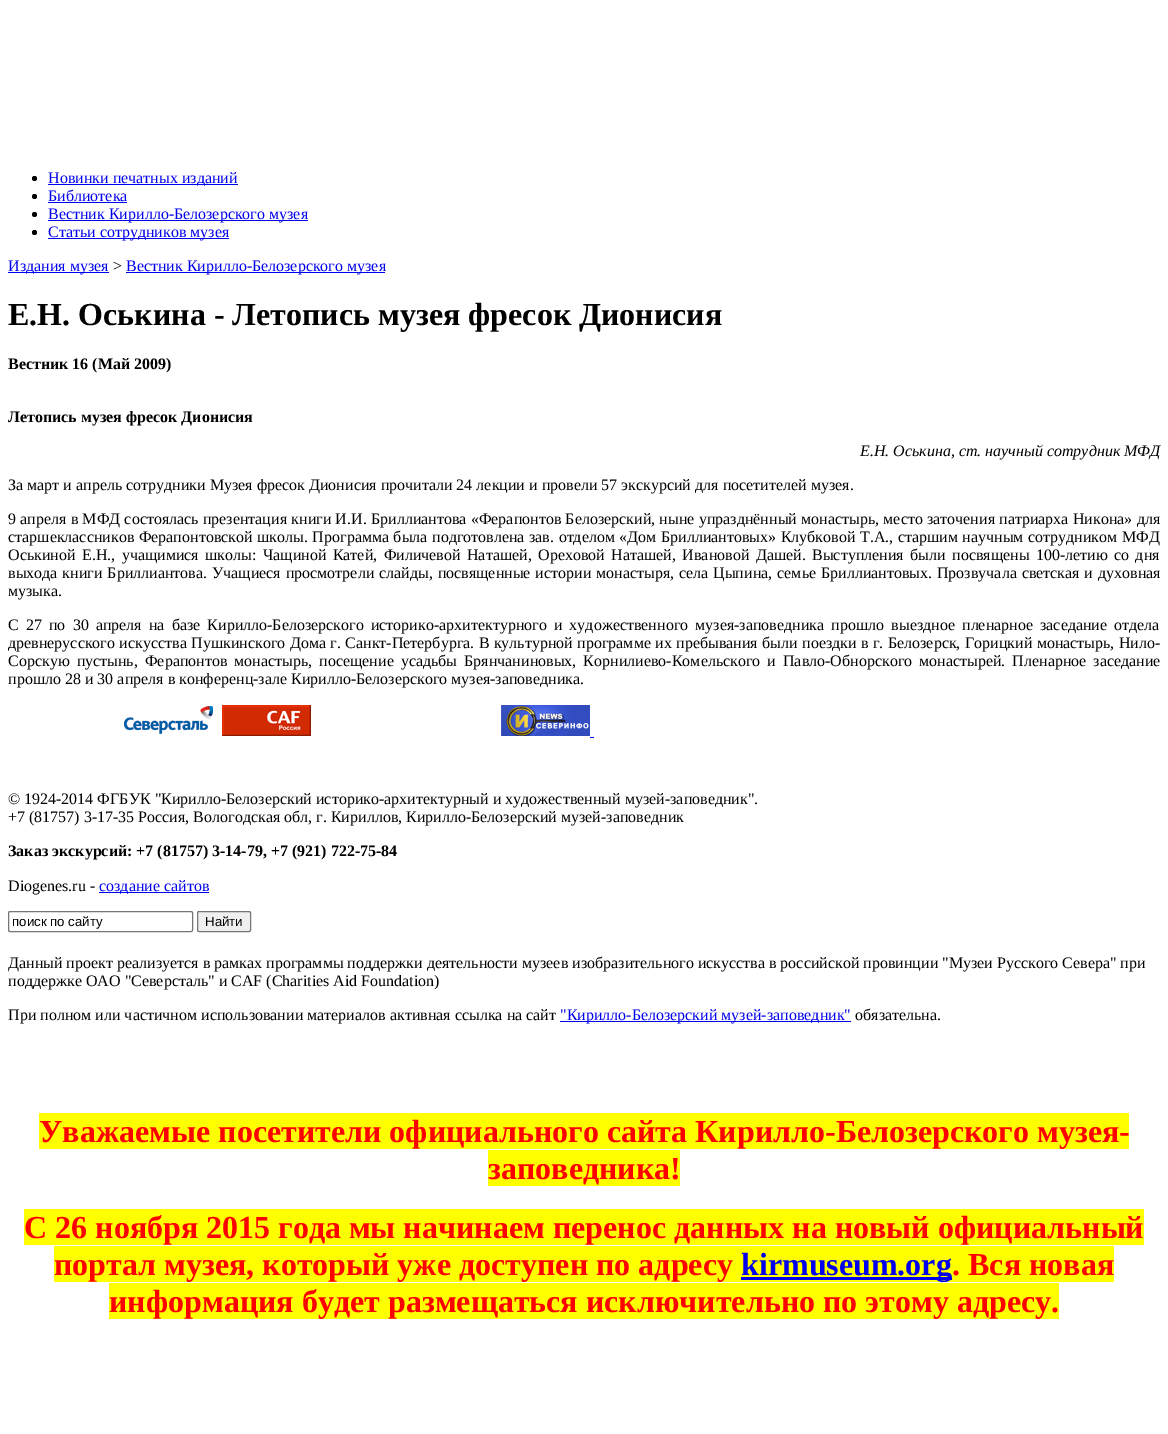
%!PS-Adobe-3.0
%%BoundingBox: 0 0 1168 1434
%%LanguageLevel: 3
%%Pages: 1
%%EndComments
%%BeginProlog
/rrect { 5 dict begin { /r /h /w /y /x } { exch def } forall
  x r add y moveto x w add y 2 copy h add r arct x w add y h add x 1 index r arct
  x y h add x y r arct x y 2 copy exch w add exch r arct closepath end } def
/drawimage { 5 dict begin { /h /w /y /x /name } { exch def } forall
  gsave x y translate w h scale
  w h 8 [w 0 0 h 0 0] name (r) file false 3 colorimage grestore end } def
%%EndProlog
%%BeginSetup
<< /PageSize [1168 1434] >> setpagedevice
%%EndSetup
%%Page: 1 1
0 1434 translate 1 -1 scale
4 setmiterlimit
1 setgray
0 0 1168 1434 rectfill
0 setgray
newpath 34.5 178.5 2.5 0 360 arc closepath fill
0 0 0.933 setrgbcolor
48 184 190 1 rectfill
0 setgray
newpath 34.5 196.5 2.5 0 360 arc closepath fill
0 0 0.933 setrgbcolor
48 202 79 1 rectfill
0 setgray
newpath 34.5 214.5 2.5 0 360 arc closepath fill
0 0 0.933 setrgbcolor
48 220 260 1 rectfill
0 setgray
newpath 34.5 232.5 2.5 0 360 arc closepath fill
0 0 0.933 setrgbcolor
48 238 181 1 rectfill
8 272 101 1 rectfill
126 272 259 1 rectfill
(images/1.raw) 124 706 89 28 drawimage
(images/2.raw) 222 705 89 31 drawimage
(images/3.raw) 501 705 89 31 drawimage
590 737 4 1 rectfill
99 892 110 1 rectfill
0.463 setgray
8.5 911.5 184 20 1.5 rrect stroke
0.937 setgray
197.5 911.5 53 20 1.5 rrect gsave fill grestore
0.463 setgray
stroke
0 0 0.933 setrgbcolor
560 1021 291 1 rectfill
1 1 0 setrgbcolor
39 1113 1090 36 rectfill
488 1150 192 36 rectfill
24 1209 1120 36 rectfill
54 1246 1060 36 rectfill
0 0 0.933 setrgbcolor
741 1277 211 3 rectfill
1 1 0 setrgbcolor
109 1283 950 36 rectfill
/LiberationSerif-Regular [16 0 0 -16 0 0] selectfont
0 0 0.933 setrgbcolor
48 183 moveto (Новинки печатных изданий) show
48 201 moveto (Библиотека) show
48 219 moveto (Вестник Кирилло-Белозерского музея) show
48 237 moveto (Статьи сотрудников музея) show
8 271 moveto (Издания музея) show
0 setgray
113 271 moveto (>) show
0 0 0.933 setrgbcolor
126 271 moveto (Вестник Кирилло-Белозерского музея) show
/LiberationSerif-Bold [32 0 0 -32 0 0] selectfont
0 setgray
8 325 moveto (Е.Н. Оськина - Летопись музея фресок Дионисия) show
/LiberationSerif-Bold [16 0 0 -16 0 0] selectfont
8 369 moveto (Вестник 16 \(Май 2009\)) show
8 422 moveto (Летопись музея фресок Дионисия) show
/LiberationSerif-Italic [16 0 0 -16 0 0] selectfont
860 456 moveto (Е.Н. Оськина, ст. научный сотрудник МФД) show
/LiberationSerif-Regular [16 0 0 -16 0 0] selectfont
8 490 moveto (За март и апрель сотрудники Музея фресок Дионисия прочитали 24 лекции и провели 57 экскурсий для посетителей музея.) show
8 524 moveto 0.25 0 32 (9 апреля в МФД состоялась презентация книги И.И. Бриллиантова «Ферапонтов Белозерский, ныне упразднённый монастырь, место заточения патриарха Никона» для) widthshow
8 542 moveto 0.5 0 32 (старшеклассников Ферапонтовской школы. Программа была подготовлена зав. отделом «Дом Бриллиантовых» Клубковой Т.А., старшим научным сотрудником МФД) widthshow
8 560 moveto 2.4 0 32 (Оськиной Е.Н., учащимися школы: Чащиной Катей, Филичевой Наташей, Ореховой Наташей, Ивановой Дашей. Выступления были посвящены 100-летию со дня) widthshow
8 578 moveto 0.9 0 32 (выхода книги Бриллиантова. Учащиеся просмотрели слайды, посвященные истории монастыря, села Цыпина, семье Бриллиантовых. Прозвучала светская и духовная) widthshow
8 596 moveto (музыка.) show
8 630 moveto 3.1 0 32 (С 27 по 30 апреля на базе Кирилло-Белозерского историко-архитектурного и художественного музея-заповедника прошло выездное пленарное заседание отдела) widthshow
8 648 moveto 0.4 0 32 (древнерусского искусства Пушкинского Дома г. Санкт-Петербурга. В культурной программе их пребывания были поездки в г. Белозерск, Горицкий монастырь, Нило-) widthshow
8 666 moveto 3 0 32 (Сорскую пустынь, Ферапонтов монастырь, посещение усадьбы Брянчаниновых, Корнилиево-Комельского и Павло-Обнорского монастырей. Пленарное заседание) widthshow
8 684 moveto (прошло 28 и 30 апреля в конференц-зале Кирилло-Белозерского музея-заповедника.) show
8 804 moveto (© 1924-2014 ФГБУК "Кирилло-Белозерский историко-архитектурный и художественный музей-заповедник".) show
8 822 moveto (+7 \(81757\) 3-17-35 Россия, Вологодская обл, г. Кириллов, Кирилло-Белозерский музей-заповедник) show
/LiberationSerif-Bold [16 0 0 -16 0 0] selectfont
8 856 moveto (Заказ экскурсий: +7 \(81757\) 3-14-79, +7 \(921\) 722-75-84) show
/LiberationSerif-Regular [16 0 0 -16 0 0] selectfont
8 891 moveto (Diogenes.ru -) show
0 0 0.933 setrgbcolor
99 891 moveto (создание сайтов) show
/LiberationSans-Regular [13.25 0 0 -13.25 0 0] selectfont
0 setgray
12 926 moveto (поиск по сайту) show
205 926 moveto (Найти) show
/LiberationSerif-Regular [16 0 0 -16 0 0] selectfont
8 968 moveto (Данный проект реализуется в рамках программы поддержки деятельности музеев изобразительного искусства в российской провинции "Музеи Русского Севера" при) show
8 986 moveto (поддержке ОАО "Северсталь" и CAF \(Charities Aid Foundation\)) show
8 1020 moveto (При полном или частичном использовании материалов активная ссылка на сайт) show
0 0 0.933 setrgbcolor
560 1020 moveto ("Кирилло-Белозерский музей-заповедник") show
0 setgray
855 1020 moveto (обязательна.) show
/LiberationSerif-Bold [32 0 0 -32 0 0] selectfont
1 0 0 setrgbcolor
39 1142 moveto (Уважаемые посетители официального сайта Кирилло-Белозерского музея-) show
488 1179 moveto (заповедника!) show
24 1238 moveto (С 26 ноября 2015 года мы начинаем перенос данных на новый официальный) show
54 1275 moveto (портал музея, который уже доступен по адресу) show
0 0 0.933 setrgbcolor
741 1275 moveto (kirmuseum.org) show
1 0 0 setrgbcolor
952 1275 moveto (. Вся новая) show
109 1312 moveto (информация будет размещаться исключительно по этому адресу.) show
showpage
%%EOF
